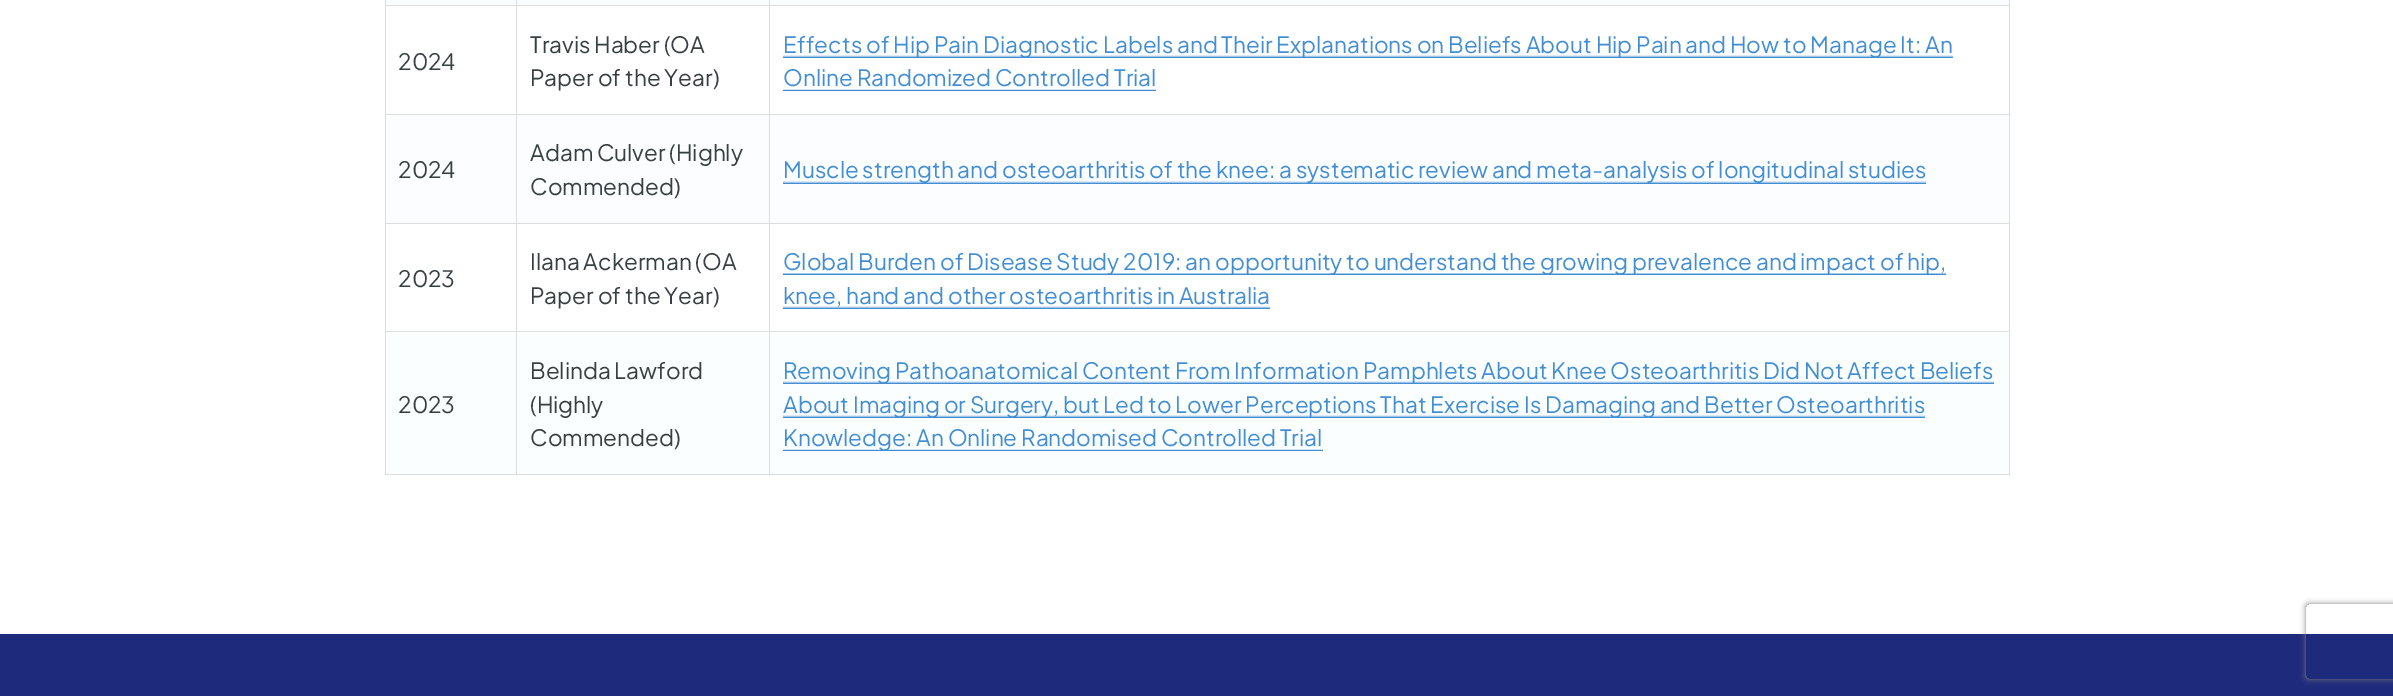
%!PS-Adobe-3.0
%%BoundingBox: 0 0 2393 696
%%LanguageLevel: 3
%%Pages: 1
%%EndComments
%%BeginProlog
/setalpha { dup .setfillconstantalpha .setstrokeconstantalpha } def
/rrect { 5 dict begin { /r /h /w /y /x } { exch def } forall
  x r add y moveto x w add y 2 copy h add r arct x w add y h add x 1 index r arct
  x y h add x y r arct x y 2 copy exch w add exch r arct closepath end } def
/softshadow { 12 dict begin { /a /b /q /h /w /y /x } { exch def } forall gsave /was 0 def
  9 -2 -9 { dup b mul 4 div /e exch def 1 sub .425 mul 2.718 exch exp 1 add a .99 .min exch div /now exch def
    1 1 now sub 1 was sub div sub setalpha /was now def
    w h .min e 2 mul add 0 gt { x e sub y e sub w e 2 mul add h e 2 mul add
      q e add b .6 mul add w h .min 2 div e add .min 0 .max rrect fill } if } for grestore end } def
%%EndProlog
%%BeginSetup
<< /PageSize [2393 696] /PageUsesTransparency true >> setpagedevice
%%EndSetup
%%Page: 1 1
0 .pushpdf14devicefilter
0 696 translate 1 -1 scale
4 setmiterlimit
1 setgray
0 0 2393 696 rectfill
0.867 setgray
2009 0 1 475 rectfill
385 474 1625 1 rectfill
0.98 0.992 1 setrgbcolor
385 0 1624 5 rectfill
0.867 setgray
385 0 1 475 rectfill
769 5 1241 1 rectfill
769 114 1241 1 rectfill
0.984 0.992 1 setrgbcolor
386 115 1623 108 rectfill
0.867 setgray
769 223 1241 1 rectfill
769 331 1241 1 rectfill
0.984 0.996 1 setrgbcolor
386 333 1623 141 rectfill
0.867 setgray
769 331 1 144 rectfill
516 331 254 1 rectfill
769 223 1 110 rectfill
516 223 254 1 rectfill
769 114 1 110 rectfill
516 114 254 1 rectfill
769 5 1 110 rectfill
516 5 254 1 rectfill
516 331 1 144 rectfill
385 331 133 1 rectfill
516 223 1 110 rectfill
385 223 133 1 rectfill
516 114 1 110 rectfill
385 114 133 1 rectfill
516 5 1 110 rectfill
385 5 133 1 rectfill
516 0 1 6 rectfill
769 0 1 6 rectfill
gsave newpath 783 55 moveto 1953 55 lineto 1953 58 lineto 783 58 lineto closepath clip newpath
<< /ShadingType 2 /ColorSpace /DeviceRGB /Coords [1368 55 1368 58] /Extend [true true] /Function << /FunctionType 2 /Domain [0 1] /C0 [1 1 1] /C1 [0.263 0.557 0.824] /N 1 >> >> shfill grestore
gsave newpath 783 89 moveto 1156 89 lineto 1156 91 lineto 783 91 lineto closepath clip newpath
<< /ShadingType 2 /ColorSpace /DeviceRGB /Coords [969 89 969 91] /Extend [true true] /Function << /FunctionType 2 /Domain [0 1] /C0 [1 1 1] /C1 [0.263 0.557 0.824] /N 1 >> >> shfill grestore
gsave newpath 783 181 moveto 1926 181 lineto 1926 184 lineto 783 184 lineto closepath clip newpath
<< /ShadingType 2 /ColorSpace /DeviceRGB /Coords [1354 181 1354 184] /Extend [true true] /Function << /FunctionType 2 /Domain [0 1] /C0 [0.984 0.992 1] /C1 [0.263 0.557 0.824] /N 1 >> >> shfill grestore
gsave newpath 783 273 moveto 1946 273 lineto 1946 275 lineto 783 275 lineto closepath clip newpath
<< /ShadingType 2 /ColorSpace /DeviceRGB /Coords [1364 272 1364 275] /Extend [true true] /Function << /FunctionType 2 /Domain [0 1] /C0 [1 1 1] /C1 [0.263 0.557 0.824] /N 1 >> >> shfill grestore
gsave newpath 783 306 moveto 1270 306 lineto 1270 309 lineto 783 309 lineto closepath clip newpath
<< /ShadingType 2 /ColorSpace /DeviceRGB /Coords [1026 306 1026 309] /Extend [true true] /Function << /FunctionType 2 /Domain [0 1] /C0 [1 1 1] /C1 [0.263 0.557 0.824] /N 1 >> >> shfill grestore
gsave newpath 783 381 moveto 1994 381 lineto 1994 384 lineto 783 384 lineto closepath clip newpath
<< /ShadingType 2 /ColorSpace /DeviceRGB /Coords [1388 381 1388 384] /Extend [true true] /Function << /FunctionType 2 /Domain [0 1] /C0 [0.984 0.996 1] /C1 [0.263 0.557 0.824] /N 1 >> >> shfill grestore
gsave newpath 783 415 moveto 1925 415 lineto 1925 418 lineto 783 418 lineto closepath clip newpath
<< /ShadingType 2 /ColorSpace /DeviceRGB /Coords [1354 415 1354 418] /Extend [true true] /Function << /FunctionType 2 /Domain [0 1] /C0 [0.984 0.996 1] /C1 [0.263 0.557 0.824] /N 1 >> >> shfill grestore
gsave newpath 783 449 moveto 1323 449 lineto 1323 451 lineto 783 451 lineto closepath clip newpath
<< /ShadingType 2 /ColorSpace /DeviceRGB /Coords [1053 449 1053 451] /Extend [true true] /Function << /FunctionType 2 /Domain [0 1] /C0 [0.984 0.996 1] /C1 [0.263 0.557 0.824] /N 1 >> >> shfill grestore
0.118 0.165 0.482 setrgbcolor
0 634 2393 62 rectfill
gsave
newpath 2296 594 moveto 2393 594 lineto 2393 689 lineto 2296 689 lineto closepath 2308.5 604 moveto 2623.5 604 lineto 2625 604 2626 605 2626 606.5 curveto 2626 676.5 lineto 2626 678 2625 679 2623.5 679 curveto 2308.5 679 lineto 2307 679 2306 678 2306 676.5 curveto 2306 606.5 lineto 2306 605 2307 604 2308.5 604 curveto closepath eoclip newpath
0.502 setgray
2306 604 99 75 2.5 3 1 softshadow
grestore
/PlusJakartaSans-Regular [22.5 0 0 -22.5 0 0] selectfont
0.216 0.247 0.255 setrgbcolor
398 70 moveto (2024) show
530 53 moveto (Travis Haber \(OA) show
530 86 moveto (Paper of the Year\)) show
0.263 0.557 0.824 setrgbcolor
783 53 moveto (Effects of Hip Pain Diagnostic Labels and Their Explanations on Beliefs About Hip Pain and How to Manage It: An) show
783 86 moveto (Online Randomized Controlled Trial) show
0.216 0.247 0.255 setrgbcolor
398 178 moveto (2024) show
530 161 moveto (Adam Culver \(Highly) show
530 195 moveto (Commended\)) show
0.263 0.557 0.824 setrgbcolor
783 178 moveto (Muscle strength and osteoarthritis of the knee: a systematic review and meta-analysis of longitudinal studies) show
0.216 0.247 0.255 setrgbcolor
398 287 moveto (2023) show
530 270 moveto (Ilana Ackerman \(OA) show
530 304 moveto (Paper of the Year\)) show
0.263 0.557 0.824 setrgbcolor
783 270 moveto (Global Burden of Disease Study 2019: an opportunity to understand the growing prevalence and impact of hip,) show
783 304 moveto (knee, hand and other osteoarthritis in Australia) show
0.216 0.247 0.255 setrgbcolor
398 413 moveto (2023) show
530 379 moveto (Belinda Lawford) show
530 413 moveto (\(Highly) show
530 446 moveto (Commended\)) show
0.263 0.557 0.824 setrgbcolor
783 379 moveto (Removing Pathoanatomical Content From Information Pamphlets About Knee Osteoarthritis Did Not Affect Beliefs) show
783 413 moveto (About Imaging or Surgery, but Led to Lower Perceptions That Exercise Is Damaging and Better Osteoarthritis) show
783 446 moveto (Knowledge: An Online Randomised Controlled Trial) show
.poppdf14devicefilter showpage
%%EOF
